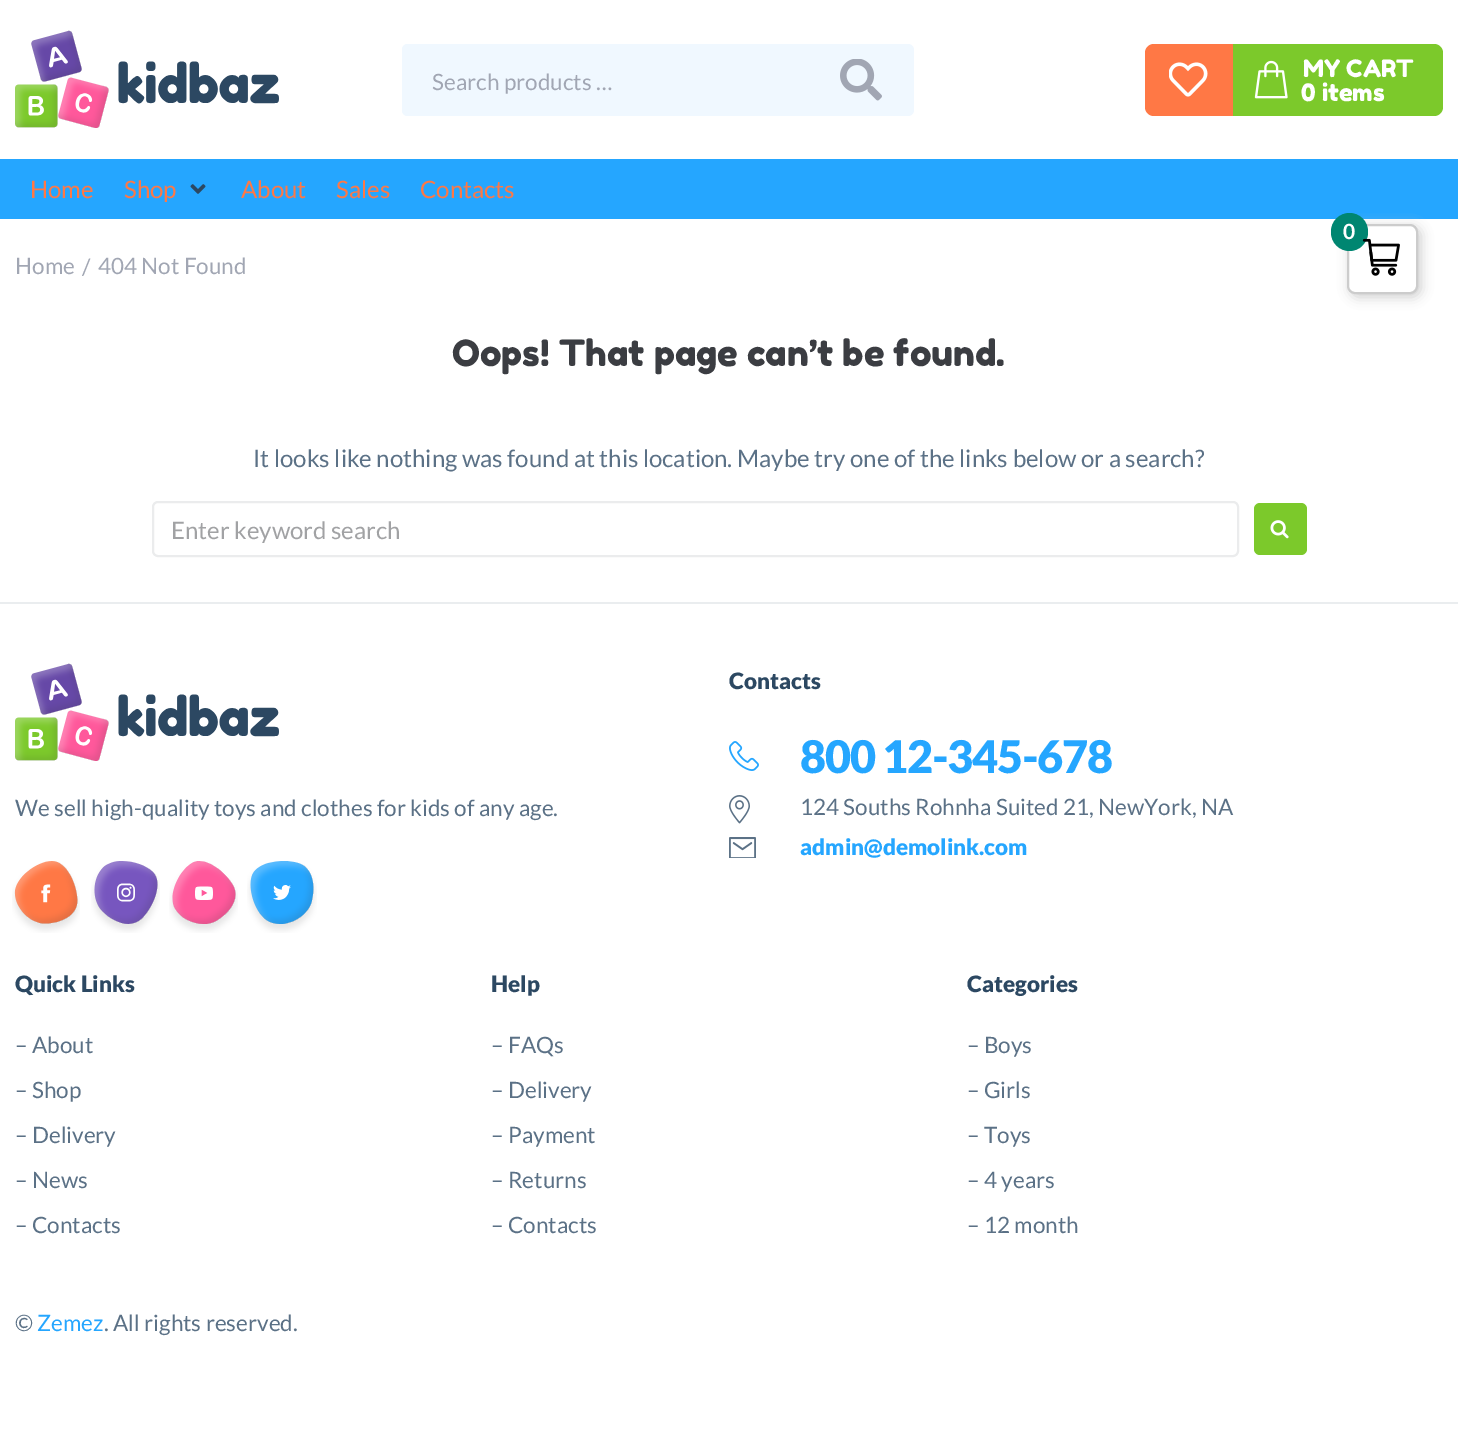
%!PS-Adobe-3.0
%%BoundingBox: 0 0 1458 1452
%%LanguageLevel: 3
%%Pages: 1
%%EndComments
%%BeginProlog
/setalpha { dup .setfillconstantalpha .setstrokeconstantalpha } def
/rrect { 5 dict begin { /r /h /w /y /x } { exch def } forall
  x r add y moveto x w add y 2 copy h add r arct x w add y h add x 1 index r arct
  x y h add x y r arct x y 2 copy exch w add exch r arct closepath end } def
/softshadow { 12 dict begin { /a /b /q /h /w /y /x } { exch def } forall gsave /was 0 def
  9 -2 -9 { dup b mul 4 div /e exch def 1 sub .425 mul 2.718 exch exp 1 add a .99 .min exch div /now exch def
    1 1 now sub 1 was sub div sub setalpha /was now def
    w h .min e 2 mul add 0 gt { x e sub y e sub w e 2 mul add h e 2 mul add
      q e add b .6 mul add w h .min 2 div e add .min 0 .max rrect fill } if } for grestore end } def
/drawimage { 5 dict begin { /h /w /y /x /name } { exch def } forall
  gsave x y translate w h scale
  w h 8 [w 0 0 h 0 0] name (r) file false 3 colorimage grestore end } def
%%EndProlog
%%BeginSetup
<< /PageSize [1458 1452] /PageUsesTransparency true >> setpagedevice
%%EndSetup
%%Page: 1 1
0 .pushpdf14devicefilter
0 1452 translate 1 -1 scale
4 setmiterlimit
1 setgray
0 0 1458 1452 rectfill
(images/1.raw) 15 30 264 98 drawimage
0.941 0.973 1 setrgbcolor
402 44 512 72 6 rrect fill
newpath 408 44 moveto 795 44 lineto 795 116 lineto 408 116 lineto 404.5 116 402 113.5 402 110 curveto 402 50 lineto 402 46.5 404.5 44 408 44 curveto closepath fill
(images/2.raw) 840 59 42 42 drawimage
1 0.471 0.271 setrgbcolor
newpath 1154 44 moveto 1233 44 lineto 1233 116 lineto 1154 116 lineto 1149 116 1145 112 1145 107 curveto 1145 53 lineto 1145 48 1149 44 1154 44 curveto closepath fill
(images/3.raw) 1169 62 39 35 drawimage
0.486 0.788 0.169 setrgbcolor
newpath 1233 44 moveto 1434 44 lineto 1439 44 1443 48 1443 53 curveto 1443 107 lineto 1443 112 1439 116 1434 116 curveto 1233 116 lineto closepath fill
(images/4.raw) 1254 60 34 39 drawimage
0.145 0.651 1 setrgbcolor
0 159 1458 60 rectfill
(images/5.raw) 190 184 16 10 drawimage
0.922 0.925 0.929 setrgbcolor
2 setlinewidth
153 502 1085 54 5 rrect stroke
0.486 0.788 0.169 setrgbcolor
1254 503 53 52 6 rrect fill
(images/6.raw) 1270 520 19 19 drawimage
0.918 0.929 0.937 setrgbcolor
0 602 1458 2 rectfill
(images/1.raw) 15 663 264 98 drawimage
(images/7.raw) 12 861 68 72 drawimage
(images/8.raw) 91 861 69 72 drawimage
(images/9.raw) 169 861 69 72 drawimage
(images/10.raw) 247 861 70 72 drawimage
(images/11.raw) 729 741 30 30 drawimage
(images/12.raw) 729 795 21 29 drawimage
(images/13.raw) 729 837 27 21 drawimage
0.8 setgray
1350 227 71 70 8 6 1 softshadow
1 setgray
1348 225 69 68 7 rrect gsave fill grestore
0.8 setgray
stroke
0 0.525 0.443 setrgbcolor
1331 213 37 38 18.5 rrect fill
(images/14.raw) 1362 238 38 38 drawimage
/Lato-Regular [22.5 0 0 -22.5 0 0] selectfont
0.631 0.651 0.702 setrgbcolor
432 90 moveto (Search products …) show
/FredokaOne-Regular [24 0 0 -24 0 0] selectfont
1 setgray
1303 77 moveto (MY CART) show
1301 101 moveto (0 items) show
/Lato-Regular [24 0 0 -24 0 0] selectfont
1 0.471 0.271 setrgbcolor
30 198 moveto (Home) show
124 198 moveto (Shop) show
241 198 moveto (About) show
336 198 moveto (Sales) show
420 198 moveto (Contacts) show
/Lato-Regular [22.5 0 0 -22.5 0 0] selectfont
0.631 0.651 0.702 setrgbcolor
15 274 moveto (Home) show
82 275 moveto (/) show
98 274 moveto (404 Not Found) show
/FredokaOne-Regular [36 0 0 -36 0 0] selectfont
0.231 0.239 0.259 setrgbcolor
452 366 moveto (Oops! That page can’t be found.) show
/Lato-Regular [24 0 0 -24 0 0] selectfont
0.357 0.443 0.525 setrgbcolor
253 467 moveto (It looks like nothing was found at this location. Maybe try one of the links below or a search?) show
0.631 0.635 0.643 setrgbcolor
171 539 moveto (Enter keyword search) show
/Lato-Regular [22.5 0 0 -22.5 0 0] selectfont
0.357 0.443 0.525 setrgbcolor
15 816 moveto (We sell high-quality toys and clothes for kids of any age.) show
/Lato-Black [22.5 0 0 -22.5 0 0] selectfont
0.173 0.282 0.384 setrgbcolor
729 689 moveto (Contacts) show
/Lato-Black [45 0 0 -45 0 0] selectfont
0.145 0.651 1 setrgbcolor
800 773 moveto -1.25 0 (800 12-345-678) ashow
/Lato-Regular [22.5 0 0 -22.5 0 0] selectfont
0.357 0.443 0.525 setrgbcolor
800 815 moveto (124 Souths Rohnha Suited 21, NewYork, NA) show
/Lato-Black [22.5 0 0 -22.5 0 0] selectfont
0.145 0.651 1 setrgbcolor
800 855 moveto (admin@demolink.com) show
0.173 0.282 0.384 setrgbcolor
15 992 moveto (Quick Links) show
/Lato-Regular [22.5 0 0 -22.5 0 0] selectfont
0.357 0.443 0.525 setrgbcolor
15 1053 moveto (– About) show
15 1098 moveto (– Shop) show
15 1143 moveto (– Delivery) show
15 1188 moveto (– News) show
15 1233 moveto (– Contacts) show
/Lato-Black [22.5 0 0 -22.5 0 0] selectfont
0.173 0.282 0.384 setrgbcolor
491 992 moveto (Help) show
/Lato-Regular [22.5 0 0 -22.5 0 0] selectfont
0.357 0.443 0.525 setrgbcolor
491 1053 moveto (– FAQs) show
491 1098 moveto (– Delivery) show
491 1143 moveto (– Payment) show
491 1188 moveto (– Returns) show
491 1233 moveto (– Contacts) show
/Lato-Black [22.5 0 0 -22.5 0 0] selectfont
0.173 0.282 0.384 setrgbcolor
967 992 moveto (Categories) show
/Lato-Regular [22.5 0 0 -22.5 0 0] selectfont
0.357 0.443 0.525 setrgbcolor
967 1053 moveto (– Boys) show
967 1098 moveto (– Girls) show
967 1143 moveto (– Toys) show
967 1188 moveto (– 4 years) show
967 1233 moveto (– 12 month) show
15 1331 moveto (©) show
0.145 0.651 1 setrgbcolor
37 1331 moveto (Zemez) show
0.357 0.443 0.525 setrgbcolor
104 1331 moveto (. All rights reserved.) show
/Lato-Bold [21 0 0 -21 0 0] selectfont
1 setgray
1343 239 moveto (0) show
.poppdf14devicefilter showpage
%%EOF
